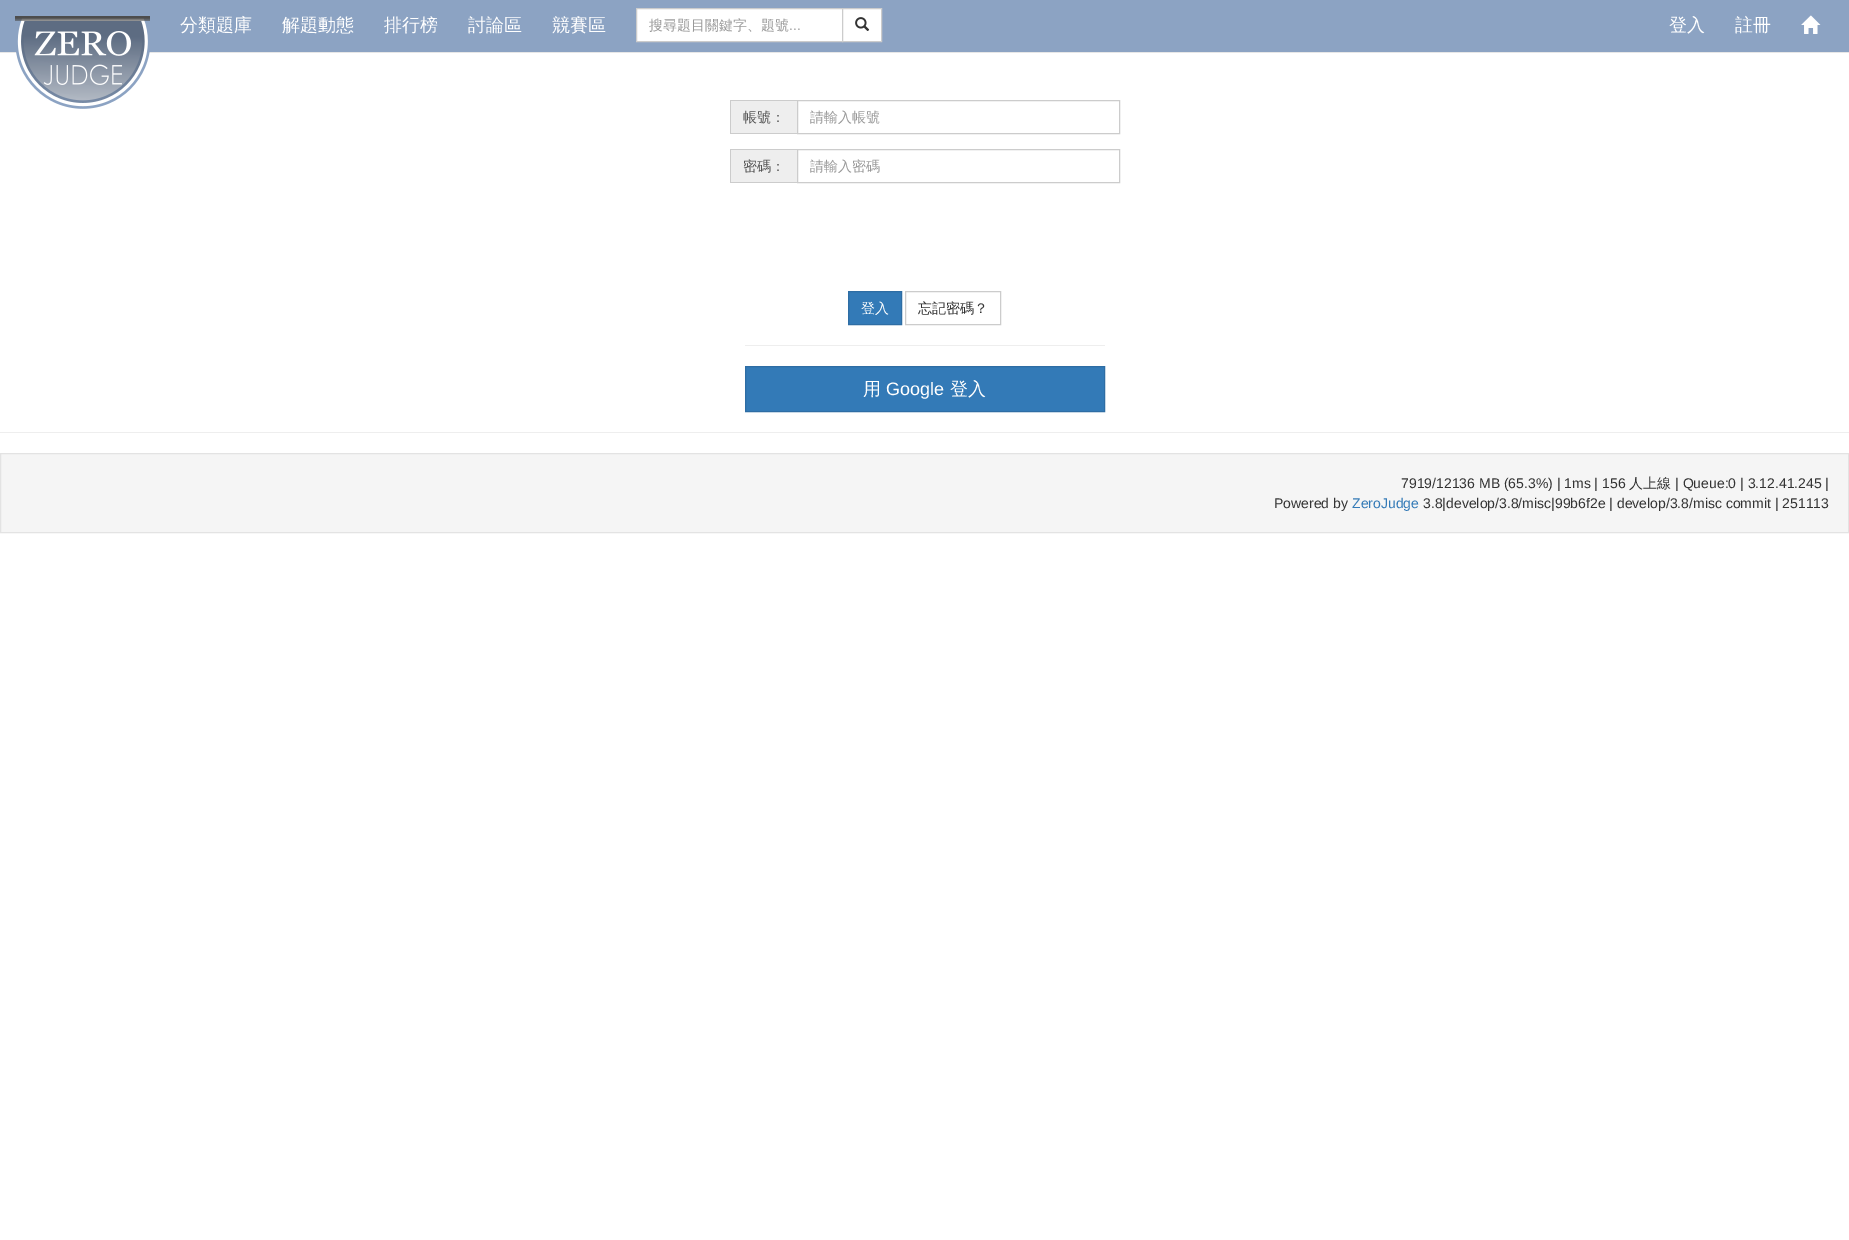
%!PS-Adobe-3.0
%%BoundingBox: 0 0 1849 1240
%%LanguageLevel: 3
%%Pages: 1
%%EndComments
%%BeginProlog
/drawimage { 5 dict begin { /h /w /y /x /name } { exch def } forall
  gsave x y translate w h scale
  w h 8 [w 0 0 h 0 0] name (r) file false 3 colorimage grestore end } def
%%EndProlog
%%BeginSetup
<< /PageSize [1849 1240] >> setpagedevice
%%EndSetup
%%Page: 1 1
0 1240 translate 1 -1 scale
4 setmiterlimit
1 setgray
0 0 1849 1240 rectfill
0.549 0.639 0.765 setrgbcolor
0 0 1849 52 rectfill
0.906 setgray
0 52 1849 1 rectfill
(images/1.raw) 15 16 135 93 drawimage
1 setgray
newpath 636.5 8.5 moveto 842.5 8.5 lineto 842.5 41.5 lineto 636.5 41.5 lineto closepath gsave fill grestore
0.8 setgray
stroke
1 setgray
newpath 842.5 8.5 moveto 881.5 8.5 lineto 881.5 41.5 lineto 842.5 41.5 lineto closepath gsave fill grestore
0.8 setgray
stroke
(images/2.raw) 855 17 15 14 drawimage
(images/3.raw) 1801 15 20 19 drawimage
0.933 setgray
731 101 66 32 rectfill
0.8 setgray
730 100 67 1 rectfill
730 133 67 1 rectfill
730 100 1 34 rectfill
797.5 100.5 322 33 rectstroke
0.933 setgray
731 150 66 32 rectfill
0.8 setgray
730 149 67 1 rectfill
730 182 67 1 rectfill
730 149 1 34 rectfill
797.5 149.5 322 33 rectstroke
0.2 0.478 0.718 setrgbcolor
newpath 848.5 291.5 moveto 901.5 291.5 lineto 901.5 324.5 lineto 848.5 324.5 lineto closepath gsave fill grestore
0.18 0.427 0.643 setrgbcolor
stroke
0.8 setgray
905.5 291.5 95 33 rectstroke
0.933 setgray
745 345 360 1 rectfill
0.2 0.478 0.718 setrgbcolor
newpath 745.5 366.5 moveto 1104.5 366.5 lineto 1104.5 411.5 lineto 745.5 411.5 lineto closepath gsave fill grestore
0.18 0.427 0.643 setrgbcolor
stroke
0.933 setgray
0 432 1849 1 rectfill
0.961 setgray
newpath 0.5 453.5 moveto 1848.5 453.5 lineto 1848.5 532.5 lineto 0.5 532.5 lineto closepath gsave fill grestore
0.89 setgray
stroke
/WenQuanYiZenHei-Medium [18 0 0 -18 0 0] selectfont
1 setgray
180 31 moveto (分類題庫) show
282 31 moveto (解題動態) show
384 31 moveto (排行榜) show
468 31 moveto (討論區) show
552 31 moveto (競賽區) show
/WenQuanYiZenHei-Medium [14 0 0 -14 0 0] selectfont
0.6 setgray
649 30 moveto (搜尋題目關鍵字、題號) show
/LiberationSans-Regular [14 0 0 -14 0 0] selectfont
789 30 moveto (...) show
/WenQuanYiZenHei-Medium [18 0 0 -18 0 0] selectfont
1 setgray
1669 31 moveto (登入) show
1735 31 moveto (註冊) show
/WenQuanYiZenHei-Medium [14 0 0 -14 0 0] selectfont
0.333 setgray
743 122 moveto (帳號：) show
gsave
810 109 297 18 rectclip
0.6 setgray
810 122 moveto (請輸入帳號) show
grestore
743 171 moveto (密碼：) show
gsave
810 158 297 18 rectclip
0.6 setgray
810 171 moveto (請輸入密碼) show
grestore
1 setgray
861 313 moveto (登入) show
0.2 setgray
918 313 moveto (忘記密碼？) show
/WenQuanYiZenHei-Medium [18 0 0 -18 0 0] selectfont
1 setgray
863 395 moveto (用) show
/LiberationSans-Regular [18 0 0 -18 0 0] selectfont
886 395 moveto (Google) show
/WenQuanYiZenHei-Medium [18 0 0 -18 0 0] selectfont
950 395 moveto (登入) show
/LiberationSans-Regular [14 0 0 -14 0 0] selectfont
0.2 setgray
1401 488 moveto (7919/12136 MB \(65.3%\) | 1ms | 156) show
/WenQuanYiZenHei-Medium [14 0 0 -14 0 0] selectfont
1629 488 moveto (人上線) show
/LiberationSans-Regular [14 0 0 -14 0 0] selectfont
1675 488 moveto (| Queue:0 | 3.12.41.245 |) show
1274 508 moveto (Powered by) show
0.2 0.478 0.718 setrgbcolor
1352 508 moveto (ZeroJudge) show
0.2 setgray
1423 508 moveto (3.8|develop/3.8/misc|99b6f2e | develop/3.8/misc commit | 251113) show
showpage
%%EOF
